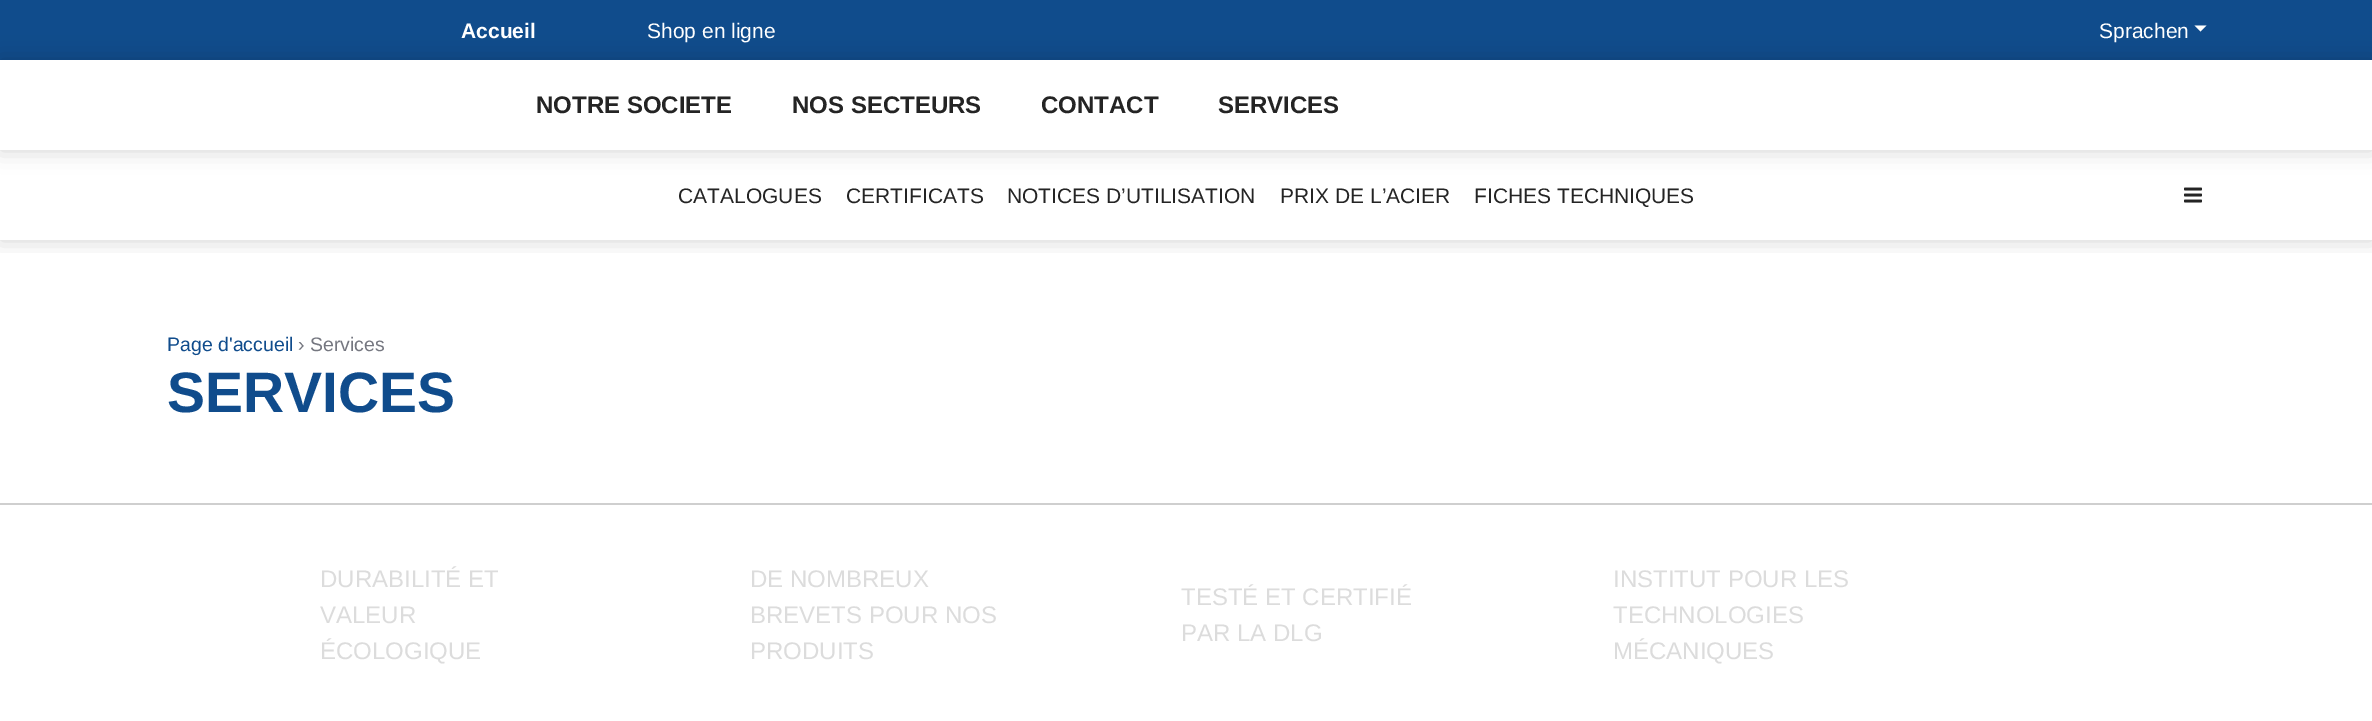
%!PS-Adobe-3.0
%%BoundingBox: 0 0 2372 721
%%LanguageLevel: 3
%%Pages: 1
%%EndComments
%%BeginProlog
/setalpha { dup .setfillconstantalpha .setstrokeconstantalpha } def
/rrect { 5 dict begin { /r /h /w /y /x } { exch def } forall
  x r add y moveto x w add y 2 copy h add r arct x w add y h add x 1 index r arct
  x y h add x y r arct x y 2 copy exch w add exch r arct closepath end } def
/softshadow { 12 dict begin { /a /b /q /h /w /y /x } { exch def } forall gsave /was 0 def
  9 -2 -9 { dup b mul 4 div /e exch def 1 sub .425 mul 2.718 exch exp 1 add a .99 .min exch div /now exch def
    1 1 now sub 1 was sub div sub setalpha /was now def
    w h .min e 2 mul add 0 gt { x e sub y e sub w e 2 mul add h e 2 mul add
      q e add b .6 mul add w h .min 2 div e add .min 0 .max rrect fill } if } for grestore end } def
/drawimage { 5 dict begin { /h /w /y /x /name } { exch def } forall
  gsave x y translate w h scale
  w h 8 [w 0 0 h 0 0] name (r) file false 3 colorimage grestore end } def
%%EndProlog
%%BeginSetup
<< /PageSize [2372 721] /PageUsesTransparency true >> setpagedevice
%%EndSetup
%%Page: 1 1
0 .pushpdf14devicefilter
0 721 translate 1 -1 scale
4 setmiterlimit
1 setgray
0 0 2372 721 rectfill
0.063 0.298 0.549 setrgbcolor
0 0 2372 60 rectfill
1 setgray
newpath 2194.5 25.5 moveto 2206.5 25.5 lineto 2200.5 31.5 lineto closepath fill
0 setgray
0 60 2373 90 0 11 0.18 softshadow
gsave
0 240 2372 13 rectclip
0 150 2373 90 0 11 0.18 softshadow
grestore
1 setgray
0 60 2372 90 rectfill
(images/1.raw) 2184 187 18 16 drawimage
0.812 setgray
0 503 2372 2 rectfill
/LiberationSans-Bold [21 0 0 -21 0 0] selectfont
1 setgray
461 38 moveto (Accueil) show
/LiberationSans-Regular [21 0 0 -21 0 0] selectfont
647 38 moveto (Shop en ligne) show
2099 38 moveto (Sprachen) show
/LiberationSans-Bold [24 0 0 -24 0 0] selectfont
0.141 setgray
536 113 moveto (NOTRE SOCIETE) show
792 113 moveto (NOS SECTEURS) show
1041 113 moveto (CONTACT) show
1218 113 moveto (SERVICES) show
/LiberationSans-Regular [21 0 0 -21 0 0] selectfont
678 203 moveto (CATALOGUES) show
846 203 moveto (CERTIFICATS) show
1007 203 moveto (NOTICES D’UTILISATION) show
1280 203 moveto (PRIX DE L’ACIER) show
1474 203 moveto (FICHES TECHNIQUES) show
/LiberationSans-Regular [19.5 0 0 -19.5 0 0] selectfont
0.063 0.298 0.549 setrgbcolor
167 351 moveto (Page d'accueil) show
0.459 0.467 0.502 setrgbcolor
298 351 moveto (› Services) show
/LiberationSans-Bold [57 0 0 -57 0 0] selectfont
0.063 0.298 0.549 setrgbcolor
167 412 moveto (SERVICES) show
/LiberationSans-Regular [24 0 0 -24 0 0] selectfont
0.863 setgray
320 587 moveto (DURABILITÉ ET) show
320 623 moveto (VALEUR) show
320 659 moveto (ÉCOLOGIQUE) show
750 587 moveto (DE NOMBREUX) show
750 623 moveto (BREVETS POUR NOS) show
750 659 moveto (PRODUITS) show
1181 605 moveto (TESTÉ ET CERTIFIÉ) show
1181 641 moveto (PAR LA DLG) show
1613 587 moveto (INSTITUT POUR LES) show
1613 623 moveto (TECHNOLOGIES) show
1613 659 moveto (MÉCANIQUES) show
.poppdf14devicefilter showpage
%%EOF
